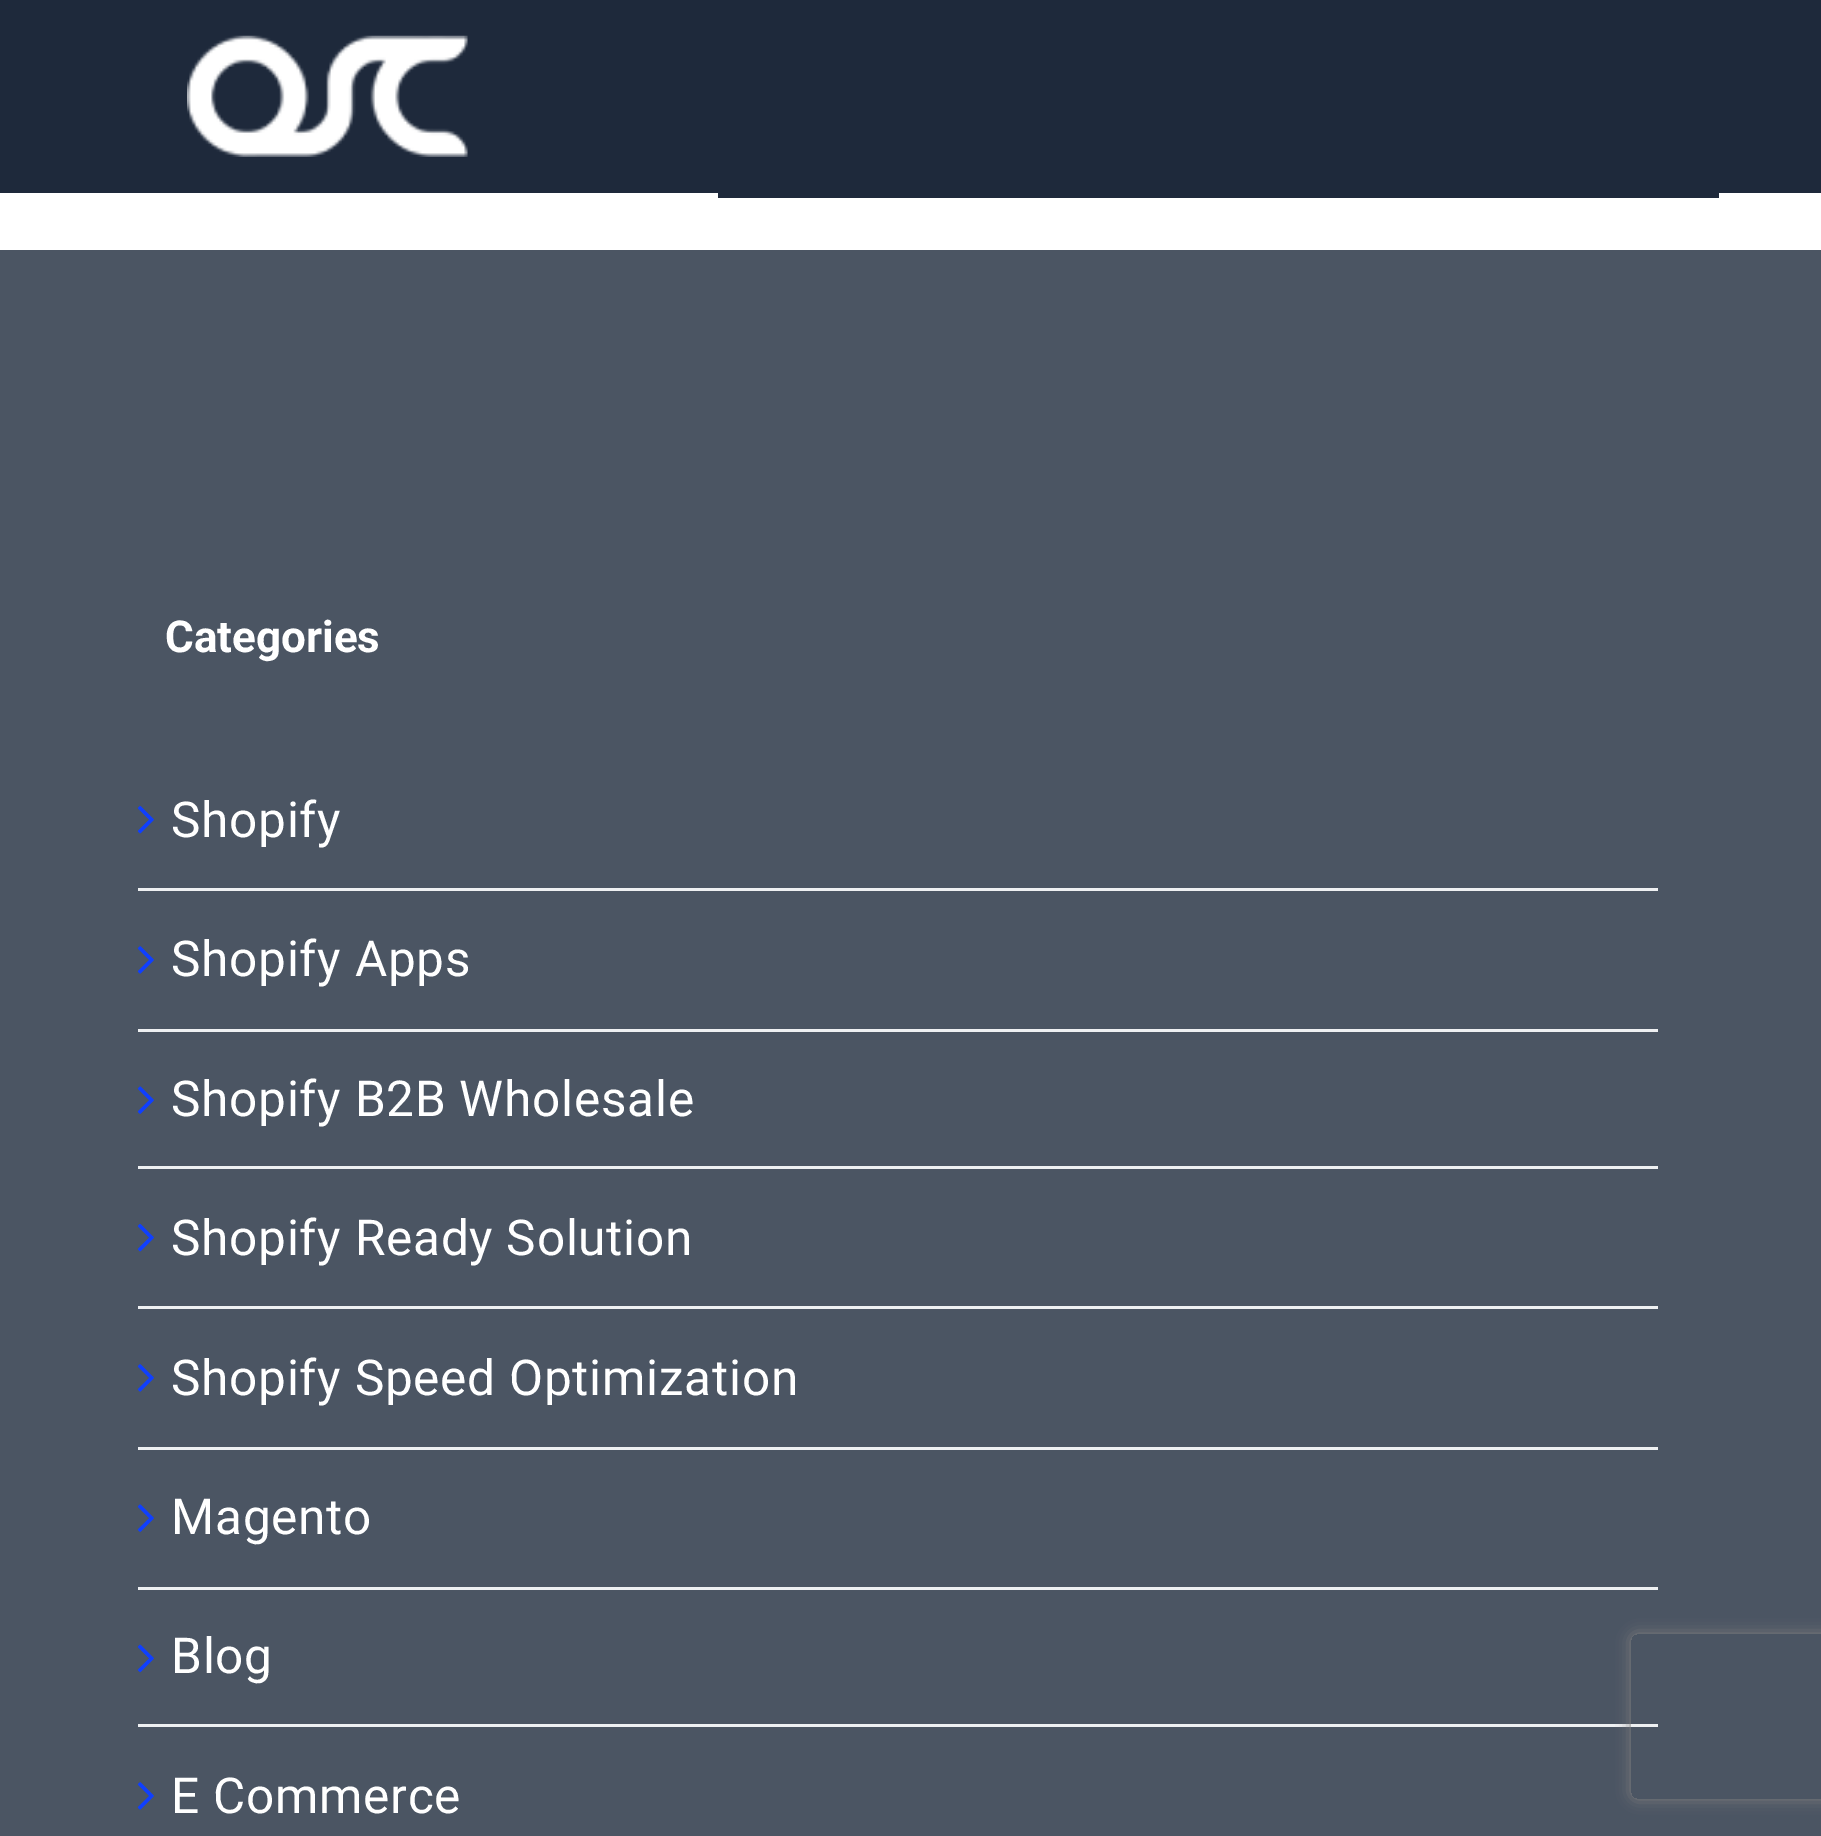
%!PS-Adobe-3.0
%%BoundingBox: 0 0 1821 1836
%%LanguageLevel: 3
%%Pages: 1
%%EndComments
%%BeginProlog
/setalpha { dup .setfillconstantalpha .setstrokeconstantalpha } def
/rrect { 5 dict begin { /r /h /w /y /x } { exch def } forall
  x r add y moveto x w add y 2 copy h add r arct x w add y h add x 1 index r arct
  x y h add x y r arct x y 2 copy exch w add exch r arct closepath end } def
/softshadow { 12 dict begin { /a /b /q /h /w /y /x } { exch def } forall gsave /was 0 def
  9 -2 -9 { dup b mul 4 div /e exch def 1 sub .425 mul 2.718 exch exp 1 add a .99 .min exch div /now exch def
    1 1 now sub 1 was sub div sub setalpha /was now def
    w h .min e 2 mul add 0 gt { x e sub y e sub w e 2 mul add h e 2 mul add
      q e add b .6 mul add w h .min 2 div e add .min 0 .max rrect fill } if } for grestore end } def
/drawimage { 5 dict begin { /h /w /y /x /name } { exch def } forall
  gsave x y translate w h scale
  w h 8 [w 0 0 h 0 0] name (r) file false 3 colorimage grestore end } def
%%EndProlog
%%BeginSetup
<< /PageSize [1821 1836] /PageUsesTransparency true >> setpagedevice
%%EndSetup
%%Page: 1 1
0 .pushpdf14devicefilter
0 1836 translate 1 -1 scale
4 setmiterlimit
1 setgray
0 0 1821 1836 rectfill
0.118 0.161 0.231 setrgbcolor
0 0 1821 193 rectfill
(images/1.raw) 187 35 281 122 drawimage
718 193 1001 5 rectfill
0.294 0.333 0.388 setrgbcolor
0 250 1821 1586 rectfill
0.933 0.941 0.949 setrgbcolor
138 888 1520 3 rectfill
(images/2.raw) 137 805 17 29 drawimage
138 1029 1520 3 rectfill
(images/3.raw) 137 946 17 28 drawimage
138 1166 1520 3 rectfill
(images/4.raw) 137 1086 17 28 drawimage
138 1306 1520 3 rectfill
(images/2.raw) 137 1223 17 29 drawimage
138 1447 1520 3 rectfill
(images/3.raw) 137 1364 17 28 drawimage
138 1587 1520 3 rectfill
(images/4.raw) 137 1504 17 28 drawimage
138 1724 1520 3 rectfill
(images/5.raw) 137 1644 17 29 drawimage
(images/3.raw) 137 1782 17 28 drawimage
gsave
newpath 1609 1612 moveto 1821 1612 lineto 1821 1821 lineto 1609 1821 lineto closepath 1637 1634 moveto 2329 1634 lineto 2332.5 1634 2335 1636.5 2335 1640 curveto 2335 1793 lineto 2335 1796.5 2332.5 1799 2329 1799 curveto 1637 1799 lineto 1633.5 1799 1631 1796.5 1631 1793 curveto 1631 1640 lineto 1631 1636.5 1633.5 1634 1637 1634 curveto closepath eoclip newpath
0.502 setgray
1631 1634 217 165 6 7 1 softshadow
grestore
/Roboto-Bold [44 0 0 -44 0 0] selectfont
1 setgray
165 652 moveto (Categories) show
/Roboto-Regular [49.5 0 0 -49.5 0 0] selectfont
171 837 moveto 0.75 0 (Shopify) ashow
171 976 moveto 0.75 0 (Shopify Apps) ashow
171 1116 moveto 0.75 0 (Shopify B2B Wholesale) ashow
171 1255 moveto 0.75 0 (Shopify Ready Solution) ashow
171 1395 moveto 0.75 0 (Shopify Speed Optimization) ashow
171 1534 moveto 0.75 0 (Magento) ashow
171 1673 moveto 0.75 0 (Blog) ashow
171 1813 moveto 0.75 0 (E Commerce) ashow
.poppdf14devicefilter showpage
%%EOF
